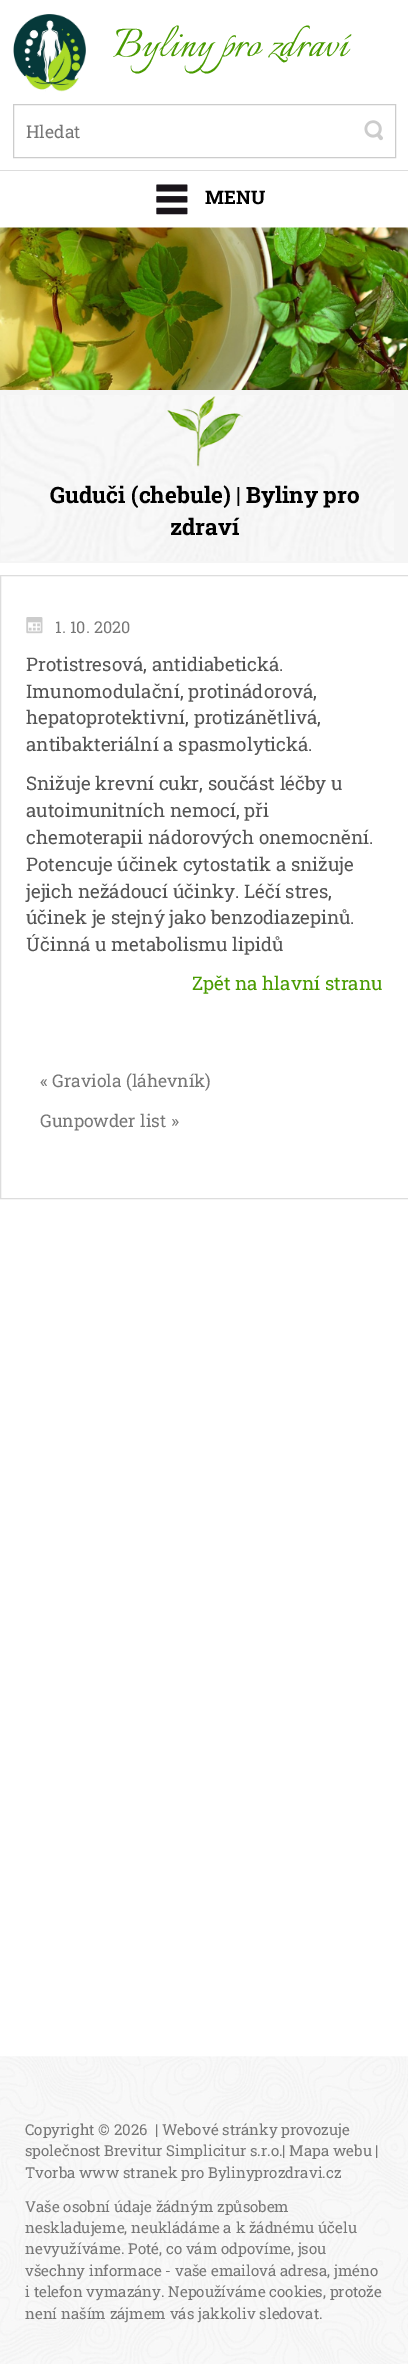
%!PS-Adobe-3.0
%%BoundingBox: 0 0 408 2364
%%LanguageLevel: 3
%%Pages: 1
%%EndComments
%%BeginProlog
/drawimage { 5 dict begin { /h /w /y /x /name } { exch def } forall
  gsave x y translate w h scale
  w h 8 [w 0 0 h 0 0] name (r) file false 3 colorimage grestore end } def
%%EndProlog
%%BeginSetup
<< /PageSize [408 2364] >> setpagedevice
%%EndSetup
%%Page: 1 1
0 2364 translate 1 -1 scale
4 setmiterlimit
1 setgray
0 0 408 2364 rectfill
(images/1.raw) 13 14 73 78 drawimage
0.8 setgray
13.5 104.5 382 53 rectstroke
(images/2.raw) 364 120 19 21 drawimage
0.867 setgray
0 170 408 1 rectfill
(images/3.raw) 156 184 32 31 drawimage
(images/4.raw) 0 227 408 163 drawimage
0.961 setgray
0 390 408 173 rectfill
(images/5.raw) 1 395 393 166 drawimage
(images/6.raw) 167 396 76 71 drawimage
0.867 setgray
0.5 575.5 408 623 rectstroke
(images/7.raw) 26 617 17 17 drawimage
(images/8.raw) 0 2056 408 308 drawimage
/Italianno-Regular [50 0 0 -50 0 0] selectfont
0.286 0.608 0 setrgbcolor
113 56 moveto (Byliny pro zdraví) show
/RobotoSlab-Regular [17.5 0 0 -17.5 0 0] selectfont
0.467 setgray
26 138 moveto (Hledat) show
/RobotoSlab-Bold [18.75 0 0 -18.75 0 0] selectfont
0 setgray
205 204 moveto (MENU) show
/RobotoSlab-Bold [22.5 0 0 -22.5 0 0] selectfont
50 503 moveto (Guduči \(chebule\) | Byliny pro) show
170 535 moveto (zdraví) show
/RobotoSlab-Regular [16.25 0 0 -16.25 0 0] selectfont
0.467 setgray
55 633 moveto (1. 10. 2020) show
/RobotoSlab-Regular [18.75 0 0 -18.75 0 0] selectfont
0.333 setgray
26 671 moveto (Protistresová, antidiabetická.) show
26 698 moveto (Imunomodulační, protinádorová,) show
26 724 moveto (hepatoprotektivní, protizánětlivá,) show
26 751 moveto (antibakteriální a spasmolytická.) show
26 790 moveto (Snižuje krevní cukr, součást léčby u) show
26 817 moveto (autoimunitních nemocí, při) show
26 844 moveto (chemoterapii nádorových onemocnění.) show
26 871 moveto (Potencuje účinek cytostatik a snižuje) show
26 898 moveto (jejich nežádoucí účinky. Léčí stres,) show
26 924 moveto (účinek je stejný jako benzodiazepinů.) show
26 951 moveto (Účinná u metabolismu lipidů) show
0.286 0.608 0 setrgbcolor
192 990 moveto (Zpět na hlavní stranu) show
/RobotoSlab-Regular [17.5 0 0 -17.5 0 0] selectfont
0.467 setgray
40 1087 moveto (« Graviola \(láhevník\)) show
40 1127 moveto (Gunpowder list ») show
/RobotoSlab-Regular [15 0 0 -15 0 0] selectfont
25 2135 moveto (Copyright © 2026  | Webové stránky provozuje) show
25 2156 moveto (společnost Brevitur Simplicitur s.r.o.| Mapa webu |) show
25 2178 moveto (Tvorba www stranek pro Bylinyprozdravi.cz) show
25 2212 moveto (Vaše osobní údaje žádným způsobem) show
25 2233 moveto (neskladujeme, neukládáme a k žádnému účelu) show
25 2254 moveto (nevyužíváme. Poté, co vám odpovíme, jsou) show
25 2276 moveto (všechny informace - vaše emailová adresa, jméno) show
25 2297 moveto (i telefon vymazány. Nepoužíváme cookies, protože) show
25 2319 moveto (není naším zájmem vás jakkoliv sledovat.) show
showpage
%%EOF
